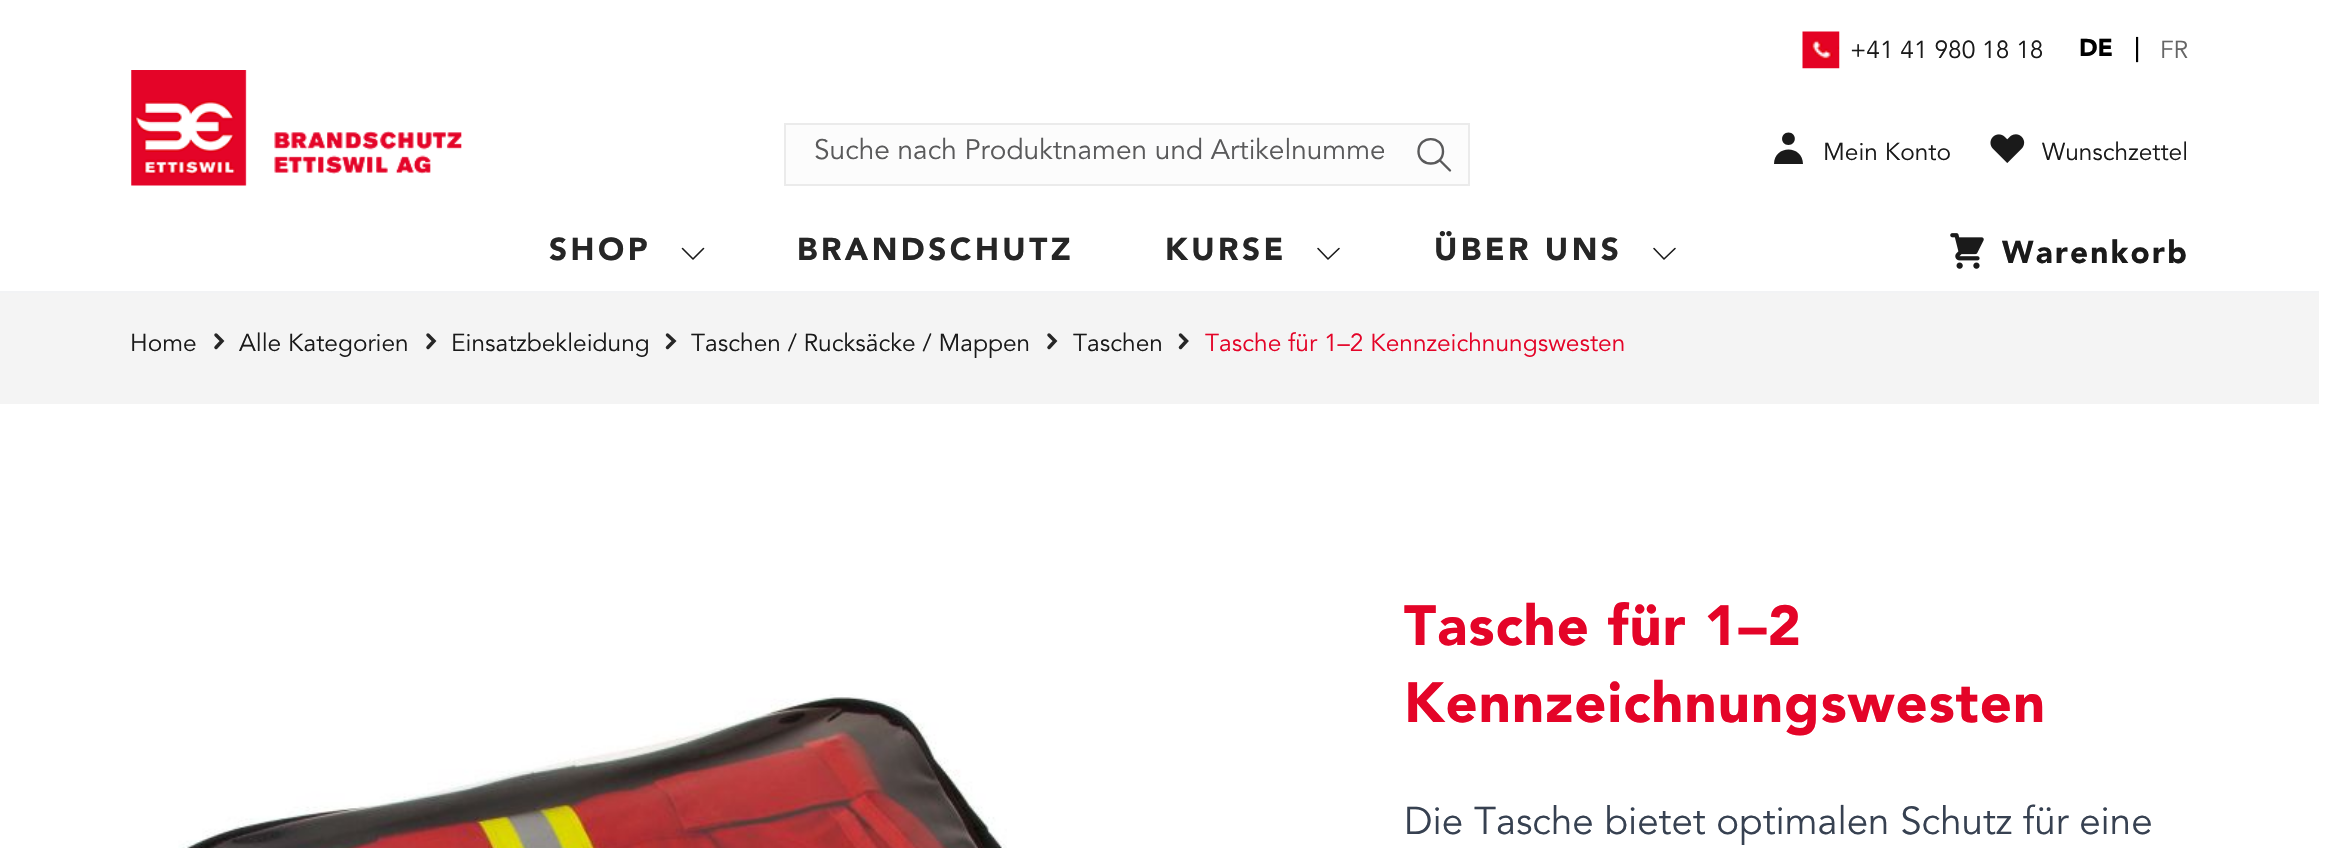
void draw(SkCanvas* canvas) {
  SkPaint paint;
  paint.setAntiAlias(true);
  auto face = [&](const char* family, int weight, float size, bool italic = false) {
    SkFontStyle style(weight, SkFontStyle::kNormal_Width,
      italic ? SkFontStyle::kItalic_Slant : SkFontStyle::kUpright_Slant);
    SkFont result(fontMgr->matchFamilyStyle(family, style), size);
    result.setSubpixel(true);
    return result;
  };
  auto writeSpaced = [&](const char* s, float x, float y, const SkFont& font, const SkPaint& ink, float letter, float word) {
    std::vector<SkGlyphID> glyphs(font.countText(s, strlen(s), SkTextEncoding::kUTF8));
    std::vector<float> xs(glyphs.size());
    font.textToGlyphs(s, strlen(s), SkTextEncoding::kUTF8, glyphs);
    font.getXPos(glyphs, xs, x);
    float extra = 0;
    for (size_t i = 0; i < glyphs.size(); i++) {
      xs[i] += extra;
      extra += letter + word * (glyphs[i] == font.unicharToGlyph(' '));
    }
    canvas->drawTextBlob(SkTextBlob::MakeFromPosHGlyphs(glyphs, xs, y, font), 0, 0, ink);
  };
  auto paste = [&](const char* path, float x, float y, float w, float h) {
    auto image = SkImages::DeferredFromEncodedData(SkData::MakeFromFileName(path));
    canvas->drawImageRect(image, SkRect::MakeXYWH(x, y, w, h), SkSamplingOptions());
  };
  auto shape = [&](const char* data, bool evenOdd = false) {
    SkPath result = *SkParsePath::FromSVGString(data);
    if (evenOdd) result.setFillType(SkPathFillType::kEvenOdd);
    return result;
  };
  canvas->clear(0xffffffff);
  paste("img/1.png", 1802, 31, 38, 38);
  paint.setColor(0xfff2f3f5);
  canvas->drawRect(SkRect::MakeXYWH(0, 291, 2319, 2), paint);
  paste("img/2.png", 131, 70, 331, 116);
  paint.setColor(0xfffcfcfc);
  canvas->drawRect(SkRect::MakeXYWH(785, 124, 684, 61), paint);
  paint.setStroke(true);
  paint.setStrokeWidth(2);
  paint.setColor(0xffebebeb);
  canvas->drawRect(SkRect::MakeXYWH(785, 124, 684, 61), paint);
  paint.setStrokeWidth(2.4f);
  paint.setStrokeCap(SkPaint::kRound_Cap);
  paint.setStrokeJoin(SkPaint::kRound_Join);
  paint.setColor(0xff5a5a5b);
  canvas->drawPath(shape("M1450 170.5L1439.5 160M1443 151.5C1443 167.5 1418.5 167.5 1418.5 151.5C1418.5 135 1443 135 1443 151.5Z"), paint);
  paint.setStroke(false);
  paint.setColor(0xff1a1a1a);
  canvas->drawPath(shape("M1788.5 145C1797 145 1797 132.5 1788.5 132.5C1780 132.5 1780 145 1788.5 145ZM1774 164C1774 144.5 1803 144.5 1803 164Z", true), paint);
  paste("img/3.png", 1990, 134, 35, 29);
  paint.setStroke(true);
  paint.setStrokeWidth(1.6f);
  canvas->drawPath(shape("M703.5 248.5L693 259L682.5 248.5"), paint);
  canvas->drawPath(shape("M1339 248.5L1328 259L1318 248.5"), paint);
  canvas->drawPath(shape("M1675 248.5L1664 259L1654 248.5"), paint);
  paste("img/4.png", 1950, 233, 34, 36);
  paint.setStroke(false);
  paint.setColor(0xfff4f4f4);
  canvas->drawRect(SkRect::MakeXYWH(0, 293, 2319, 111), paint);
  paint.setStroke(true);
  paint.setStrokeWidth(3.5f);
  paint.setStrokeJoin(SkPaint::kMiter_Join);
  paint.setColor(0xff262626);
  canvas->drawPath(shape("M216 335L222 341L216 347.5"), paint);
  canvas->drawPath(shape("M428 335L434 341L428 347.5"), paint);
  canvas->drawPath(shape("M667.5 335L674 341L667.5 347.5"), paint);
  canvas->drawPath(shape("M1049 335L1055 341L1049 347.5"), paint);
  canvas->drawPath(shape("M1180.5 335L1186.5 341L1180.5 347.5"), paint);
  paste("img/5.png", 178, 694, 829, 154);
  auto f0 = face("Avenir", 400, 24.5f);
  paint.setStroke(false);
  paint.setColor(0xff1a1a1a);
  canvas->drawString("+41 41 980 18 18", 1850, 58, f0, paint);
  auto f1 = face("Avenir", 900, 24.5f);
  paint.setColor(0xff000000);
  canvas->drawString("DE", 2079, 56, f1, paint);
  auto f2 = face("Avenir", 700, 24.5f);
  canvas->drawString("|", 2134, 56, f2, paint);
  paint.setColor(0xff666666);
  canvas->drawString("FR", 2160, 58, f0, paint);
  canvas->save();
  canvas->clipRect(SkRect::MakeXYWH(814, 137, 570, 33));
  auto f3 = face("Avenir", 400, 28);
  paint.setColor(0xff5a5a5b);
  canvas->drawString("Suche nach Produktnamen und Artikelnumme", 814, 159, f3, paint);
  canvas->restore();
  paint.setColor(0xff1a1a1a);
  canvas->drawString("Mein Konto", 1823, 160, f0, paint);
  canvas->drawString("Wunschzettel", 2042, 160, f0, paint);
  auto f4 = face("Avenir", 900, 31.5f);
  paint.setColor(0xff262626);
  {
    const struct { const char* s; float x, y; } items[] = {
      {"SHOP", 549, 260},
      {"BRANDSCHUTZ", 797, 260},
      {"KURSE", 1165, 260},
      {"ÜBER UNS", 1434, 260},
    };
    for (auto [s, x, y] : items) {
      writeSpaced(s, x, y, f4, paint, 3.5f, 0);
    }
  }
  paint.setColor(0xff1a1a1a);
  writeSpaced("Warenkorb", 2002, 263, f4, paint, 2.25f, 0);
  {
    const struct { const char* s; float x, y; } items[] = {
      {"Home", 130, 351},
      {"Alle Kategorien", 239, 351},
      {"Einsatzbekleidung", 451, 351},
      {"Taschen / Rucksäcke / Mappen", 691, 351},
      {"Taschen", 1073, 351},
    };
    for (auto [s, x, y] : items) {
      canvas->drawString(s, x, y, f0, paint);
    }
  }
  paint.setColor(0xffe40428);
  canvas->drawString("Tasche für 1–2 Kennzeichnungswesten", 1205, 351, f0, paint);
  auto f5 = face("Avenir", 900, 56);
  writeSpaced("Tasche für 1–2", 1404, 645, f5, paint, 1.1f, 0);
  writeSpaced("Kennzeichnungswesten", 1404, 722, f5, paint, 1.1f, 0);
  auto f6 = face("Avenir", 400, 38.5f);
  paint.setColor(0xff374151);
  canvas->drawString("Die Tasche bietet optimalen Schutz für eine", 1404, 834, f6, paint);
}
